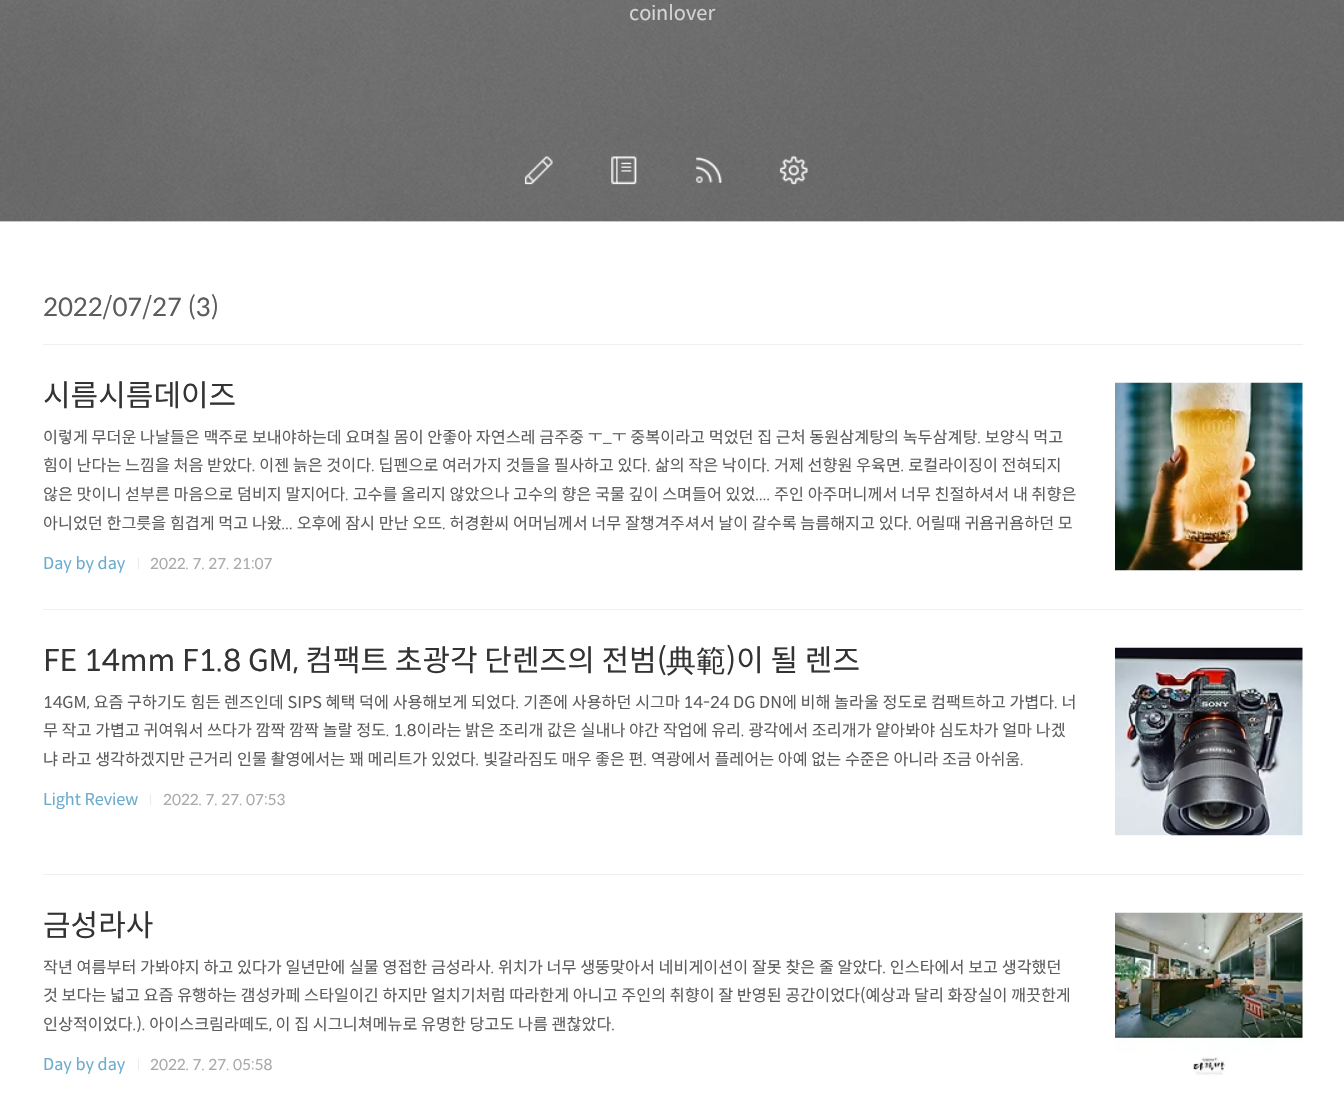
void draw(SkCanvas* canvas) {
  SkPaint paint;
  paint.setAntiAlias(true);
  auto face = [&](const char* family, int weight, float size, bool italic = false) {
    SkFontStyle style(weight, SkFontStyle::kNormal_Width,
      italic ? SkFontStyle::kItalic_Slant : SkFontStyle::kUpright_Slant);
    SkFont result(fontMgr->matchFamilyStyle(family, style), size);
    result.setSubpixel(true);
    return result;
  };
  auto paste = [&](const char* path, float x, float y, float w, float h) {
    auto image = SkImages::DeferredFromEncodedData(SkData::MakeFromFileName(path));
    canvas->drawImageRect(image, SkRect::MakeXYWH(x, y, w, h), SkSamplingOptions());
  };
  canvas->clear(0xffffffff);
  paste("img/1.png", 0, 0, 1344, 222);
  paste("img/2.png", 524, 156, 29, 29);
  paste("img/3.png", 611, 156, 26, 29);
  paste("img/4.png", 696, 157, 26, 26);
  paste("img/5.png", 779, 156, 29, 29);
  paint.setColor(0xffefefef);
  canvas->drawRect(SkRect::MakeXYWH(43, 344, 1260, 1), paint);
  canvas->drawRect(SkRect::MakeXYWH(43, 609, 1260, 1), paint);
  paste("img/6.png", 1115, 382, 188, 189);
  paint.setColor(0xffebebeb);
  canvas->drawRect(SkRect::MakeXYWH(138, 558, 1, 11), paint);
  paint.setColor(0xffefefef);
  canvas->drawRect(SkRect::MakeXYWH(43, 874, 1260, 1), paint);
  paste("img/7.png", 1115, 647, 188, 189);
  paint.setColor(0xffebebeb);
  canvas->drawRect(SkRect::MakeXYWH(150, 794, 1, 11), paint);
  paste("img/8.png", 1115, 912, 188, 164);
  canvas->drawRect(SkRect::MakeXYWH(138, 1059, 1, 11), paint);
  auto f0 = face("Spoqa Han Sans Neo", 400, 20);
  paint.setColor(0xffd4d4d4);
  canvas->drawString("coinlover", 629, 20, f0, paint);
  auto f1 = face("Spoqa Han Sans Neo", 400, 25);
  paint.setColor(0xff5c5c5c);
  canvas->drawString("2022/07/27 (3)", 43, 316, f1, paint);
  auto f2 = face("Spoqa Han Sans Neo", 400, 30);
  paint.setColor(0xff333333);
  canvas->drawString("시름시름데이즈", 43, 406, f2, paint);
  auto f3 = face("Spoqa Han Sans Neo", 400, 16.25f);
  paint.setColor(0xff5c5c5c);
  {
    const struct { const char* s; float x, y; } items[] = {
      {"이렇게 무더운 나날들은 맥주로 보내야하는데 요며칠 몸이 안좋아 자연스레 금주중 ㅜ_ㅜ 중복이라고 먹었던 집 근처 동원삼계탕의 녹두삼계탕. 보양식 먹고", 43, 443},
      {"힘이 난다는 느낌을 처음 받았다. 이젠 늙은 것이다. 딥펜으로 여러가지 것들을 필사하고 있다. 삶의 작은 낙이다. 거제 선향원 우육면. 로컬라이징이 전혀되지", 43, 471},
      {"않은 맛이니 섣부른 마음으로 덤비지 말지어다. 고수를 올리지 않았으나 고수의 향은 국물 깊이 스며들어 있었.... 주인 아주머니께서 너무 친절하셔서 내 취향은", 43, 500},
      {"아니었던 한그릇을 힘겹게 먹고 나왔... 오후에 잠시 만난 오뜨. 허경환씨 어머님께서 너무 잘챙겨주셔서 날이 갈수록 늠름해지고 있다. 어릴때 귀욤귀욤하던 모", 43, 529},
    };
    for (auto [s, x, y] : items) {
      canvas->drawString(s, x, y, f3, paint);
    }
  }
  paint.setColor(0xff6bacce);
  canvas->drawString("Day by day", 43, 569, f3, paint);
  auto f4 = face("Spoqa Han Sans Neo", 400, 15);
  paint.setColor(0xffaaaaaa);
  canvas->drawString("2022. 7. 27. 21:07", 150, 569, f4, paint);
  paint.setColor(0xff333333);
  canvas->drawString("FE 14mm F1.8 GM, 컴팩트 초광각 단렌즈의 전범(", 43, 671, f2, paint);
  auto f5 = face("WenQuanYi Zen Hei", 500, 30);
  canvas->drawString("典範", 666, 671, f5, paint);
  canvas->drawString(")이 될 렌즈", 726, 671, f2, paint);
  paint.setColor(0xff5c5c5c);
  {
    const struct { const char* s; float x, y; } items[] = {
      {"14GM, 요즘 구하기도 힘든 렌즈인데 SIPS 혜택 덕에 사용해보게 되었다. 기존에 사용하던 시그마 14-24 DG DN에 비해 놀라울 정도로 컴팩트하고 가볍다. 너", 43, 708},
      {"무 작고 가볍고 귀여워서 쓰다가 깜짝 깜짝 놀랄 정도. 1.8이라는 밝은 조리개 값은 실내나 야간 작업에 유리. 광각에서 조리개가 얕아봐야 심도차가 얼마 나겠", 43, 736},
      {"냐 라고 생각하겠지만 근거리 인물 촬영에서는 꽤 메리트가 있었다. 빛갈라짐도 매우 좋은 편. 역광에서 플레어는 아예 없는 수준은 아니라 조금 아쉬움.", 43, 765},
    };
    for (auto [s, x, y] : items) {
      canvas->drawString(s, x, y, f3, paint);
    }
  }
  paint.setColor(0xff6bacce);
  canvas->drawString("Light Review", 43, 805, f3, paint);
  paint.setColor(0xffaaaaaa);
  canvas->drawString("2022. 7. 27. 07:53", 163, 805, f4, paint);
  paint.setColor(0xff333333);
  canvas->drawString("금성라사", 43, 936, f2, paint);
  paint.setColor(0xff5c5c5c);
  {
    const struct { const char* s; float x, y; } items[] = {
      {"작년 여름부터 가봐야지 하고 있다가 일년만에 실물 영접한 금성라사. 위치가 너무 생뚱맞아서 네비게이션이 잘못 찾은 줄 알았다. 인스타에서 보고 생각했던", 43, 973},
      {"것 보다는 넓고 요즘 유행하는 갬성카페 스타일이긴 하지만 얼치기처럼 따라한게 아니고 주인의 취향이 잘 반영된 공간이었다(예상과 달리 화장실이 깨끗한게", 43, 1001},
      {"인상적이었다.). 아이스크림라떼도, 이 집 시그니쳐메뉴로 유명한 당고도 나름 괜찮았다.", 43, 1030},
    };
    for (auto [s, x, y] : items) {
      canvas->drawString(s, x, y, f3, paint);
    }
  }
  paint.setColor(0xff6bacce);
  canvas->drawString("Day by day", 43, 1070, f3, paint);
  paint.setColor(0xffaaaaaa);
  canvas->drawString("2022. 7. 27. 05:58", 150, 1070, f4, paint);
}
